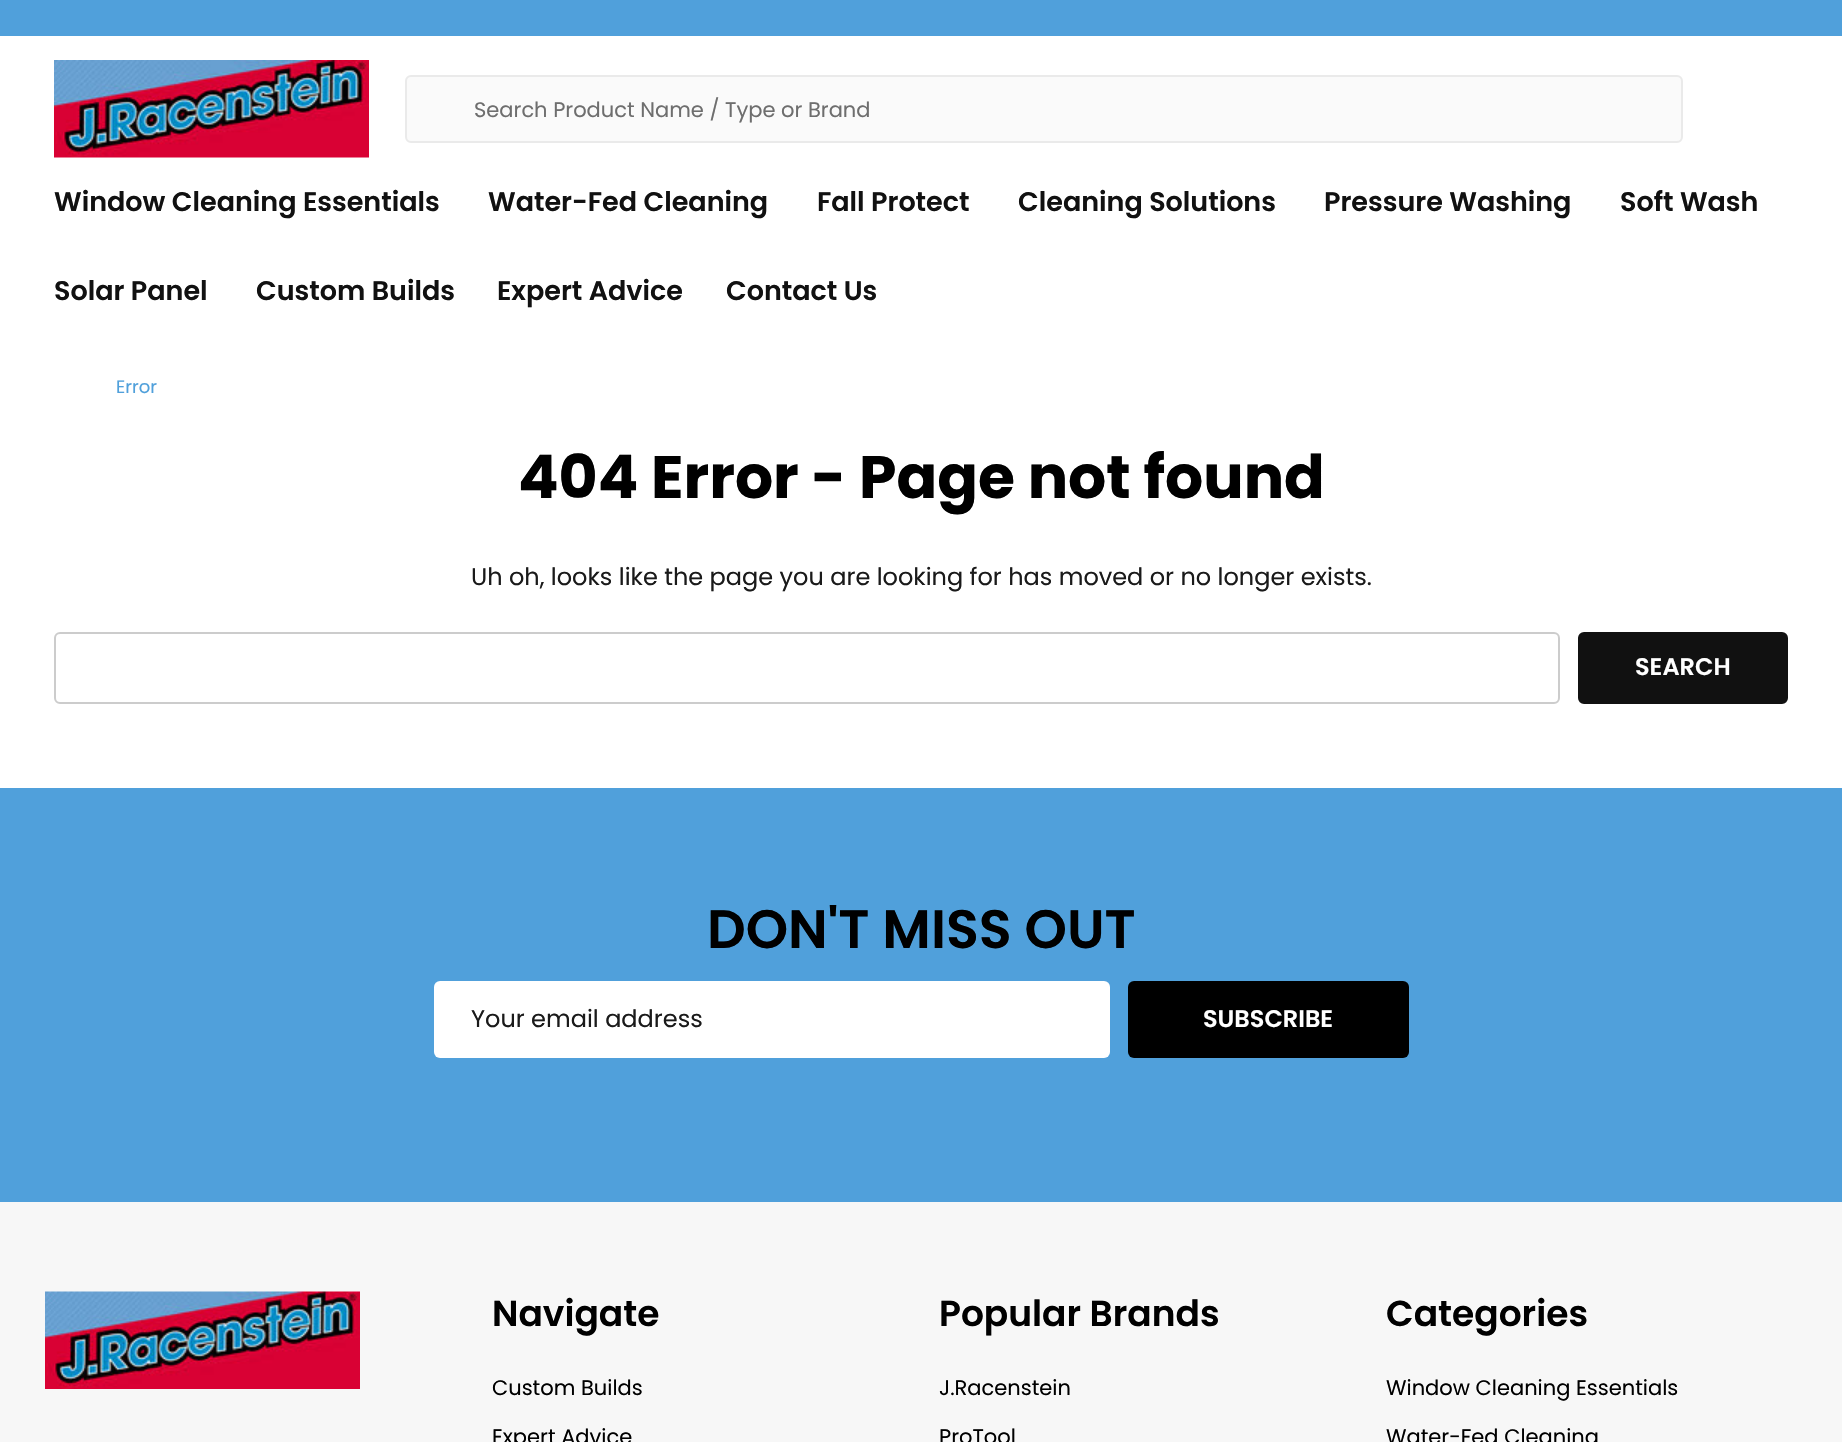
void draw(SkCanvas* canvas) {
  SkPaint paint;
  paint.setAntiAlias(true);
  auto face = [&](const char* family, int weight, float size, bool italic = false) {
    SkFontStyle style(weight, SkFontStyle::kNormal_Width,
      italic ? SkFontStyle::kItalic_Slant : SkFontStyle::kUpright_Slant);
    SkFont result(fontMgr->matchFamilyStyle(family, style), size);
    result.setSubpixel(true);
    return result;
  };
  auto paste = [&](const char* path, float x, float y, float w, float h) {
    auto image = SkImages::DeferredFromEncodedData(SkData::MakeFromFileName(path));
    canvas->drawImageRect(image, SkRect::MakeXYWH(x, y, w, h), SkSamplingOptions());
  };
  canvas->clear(0xffffffff);
  paint.setColor(0xff50a0db);
  canvas->drawRect(SkRect::MakeXYWH(0, 0, 1842, 36), paint);
  paste("img/1.png", 54, 60, 315, 98);
  paint.setColor(0xfffafafa);
  canvas->drawRoundRect(SkRect::MakeXYWH(406, 76, 1276, 66), 5, 5, paint);
  paint.setStroke(true);
  paint.setStrokeWidth(2);
  paint.setColor(0xffeaeaea);
  canvas->drawRoundRect(SkRect::MakeXYWH(406, 76, 1276, 66), 5, 5, paint);
  paint.setColor(0xffcccccc);
  canvas->drawRoundRect(SkRect::MakeXYWH(55, 633, 1504, 70), 5, 5, paint);
  paint.setStroke(false);
  paint.setColor(0xff111111);
  canvas->drawRoundRect(SkRect::MakeXYWH(1579.5f, 633.5f, 207, 69), 4.5f, 4.5f, paint);
  paint.setStroke(true);
  paint.setStrokeWidth(3);
  canvas->drawRoundRect(SkRect::MakeXYWH(1579.5f, 633.5f, 207, 69), 4.5f, 4.5f, paint);
  paint.setStroke(false);
  paint.setColor(0xff50a0db);
  canvas->drawRect(SkRect::MakeXYWH(0, 788, 1842, 414), paint);
  paint.setColor(0xffffffff);
  canvas->drawRoundRect(SkRect::MakeXYWH(434, 981, 676, 77), 6, 6, paint);
  paint.setColor(0xff000000);
  canvas->drawRoundRect(SkRect::MakeXYWH(1128, 981, 281, 77), 6, 6, paint);
  paint.setColor(0xfff7f7f7);
  canvas->drawRect(SkRect::MakeXYWH(0, 1202, 1842, 240), paint);
  paste("img/2.png", 45, 1291, 315, 98);
  auto f0 = face("Poppins", 400, 21);
  paint.setColor(0xff6e6e6e);
  canvas->drawString("Search Product Name / Type or Brand", 474, 117, f0, paint);
  auto f1 = face("Poppins", 600, 27);
  paint.setColor(0xff111111);
  {
    const struct { const char* s; float x, y; } items[] = {
      {"Window Cleaning Essentials", 54, 211},
      {"Water-Fed Cleaning", 488, 211},
      {"Fall Protect", 817, 211},
      {"Cleaning Solutions", 1018, 211},
      {"Pressure Washing", 1324, 211},
      {"Soft Wash", 1620, 211},
      {"Solar Panel", 54, 300},
      {"Custom Builds", 256, 300},
      {"Expert Advice", 497, 300},
      {"Contact Us", 726, 300},
    };
    for (auto [s, x, y] : items) {
      canvas->drawString(s, x, y, f1, paint);
    }
  }
  auto f2 = face("Poppins", 400, 18);
  paint.setColor(0xff50a0db);
  canvas->drawString("Error", 116, 393, f2, paint);
  auto f3 = face("Poppins", 700, 60);
  paint.setColor(0xff000000);
  canvas->drawString("404 Error - Page not found", 518, 498, f3, paint);
  auto f4 = face("Poppins", 400, 24);
  paint.setColor(0xff1a1a1a);
  canvas->drawString("Uh oh, looks like the page you are looking for has moved or no longer exists.", 471, 585, f4, paint);
  auto f5 = face("Poppins", 600, 24);
  paint.setColor(0xffffffff);
  canvas->drawString("SEARCH", 1635, 675, f5, paint);
  auto f6 = face("Poppins", 600, 54);
  paint.setColor(0xff000000);
  canvas->drawString("DON'T MISS OUT", 707, 948, f6, paint);
  paint.setColor(0xff1a1a1a);
  canvas->drawString("Your email address", 471, 1027, f4, paint);
  paint.setColor(0xffffffff);
  canvas->drawString("SUBSCRIBE", 1203, 1027, f5, paint);
  auto f7 = face("Poppins", 600, 36);
  paint.setColor(0xff000000);
  canvas->drawString("Navigate", 492, 1326, f7, paint);
  canvas->drawString("Custom Builds", 492, 1395, f0, paint);
  canvas->drawString("Expert Advice", 492, 1444, f0, paint);
  canvas->drawString("Popular Brands", 939, 1326, f7, paint);
  canvas->drawString("J.Racenstein", 939, 1395, f0, paint);
  canvas->drawString("ProTool", 939, 1444, f0, paint);
  canvas->drawString("Categories", 1386, 1326, f7, paint);
  canvas->drawString("Window Cleaning Essentials", 1386, 1395, f0, paint);
  canvas->drawString("Water-Fed Cleaning", 1386, 1444, f0, paint);
}
